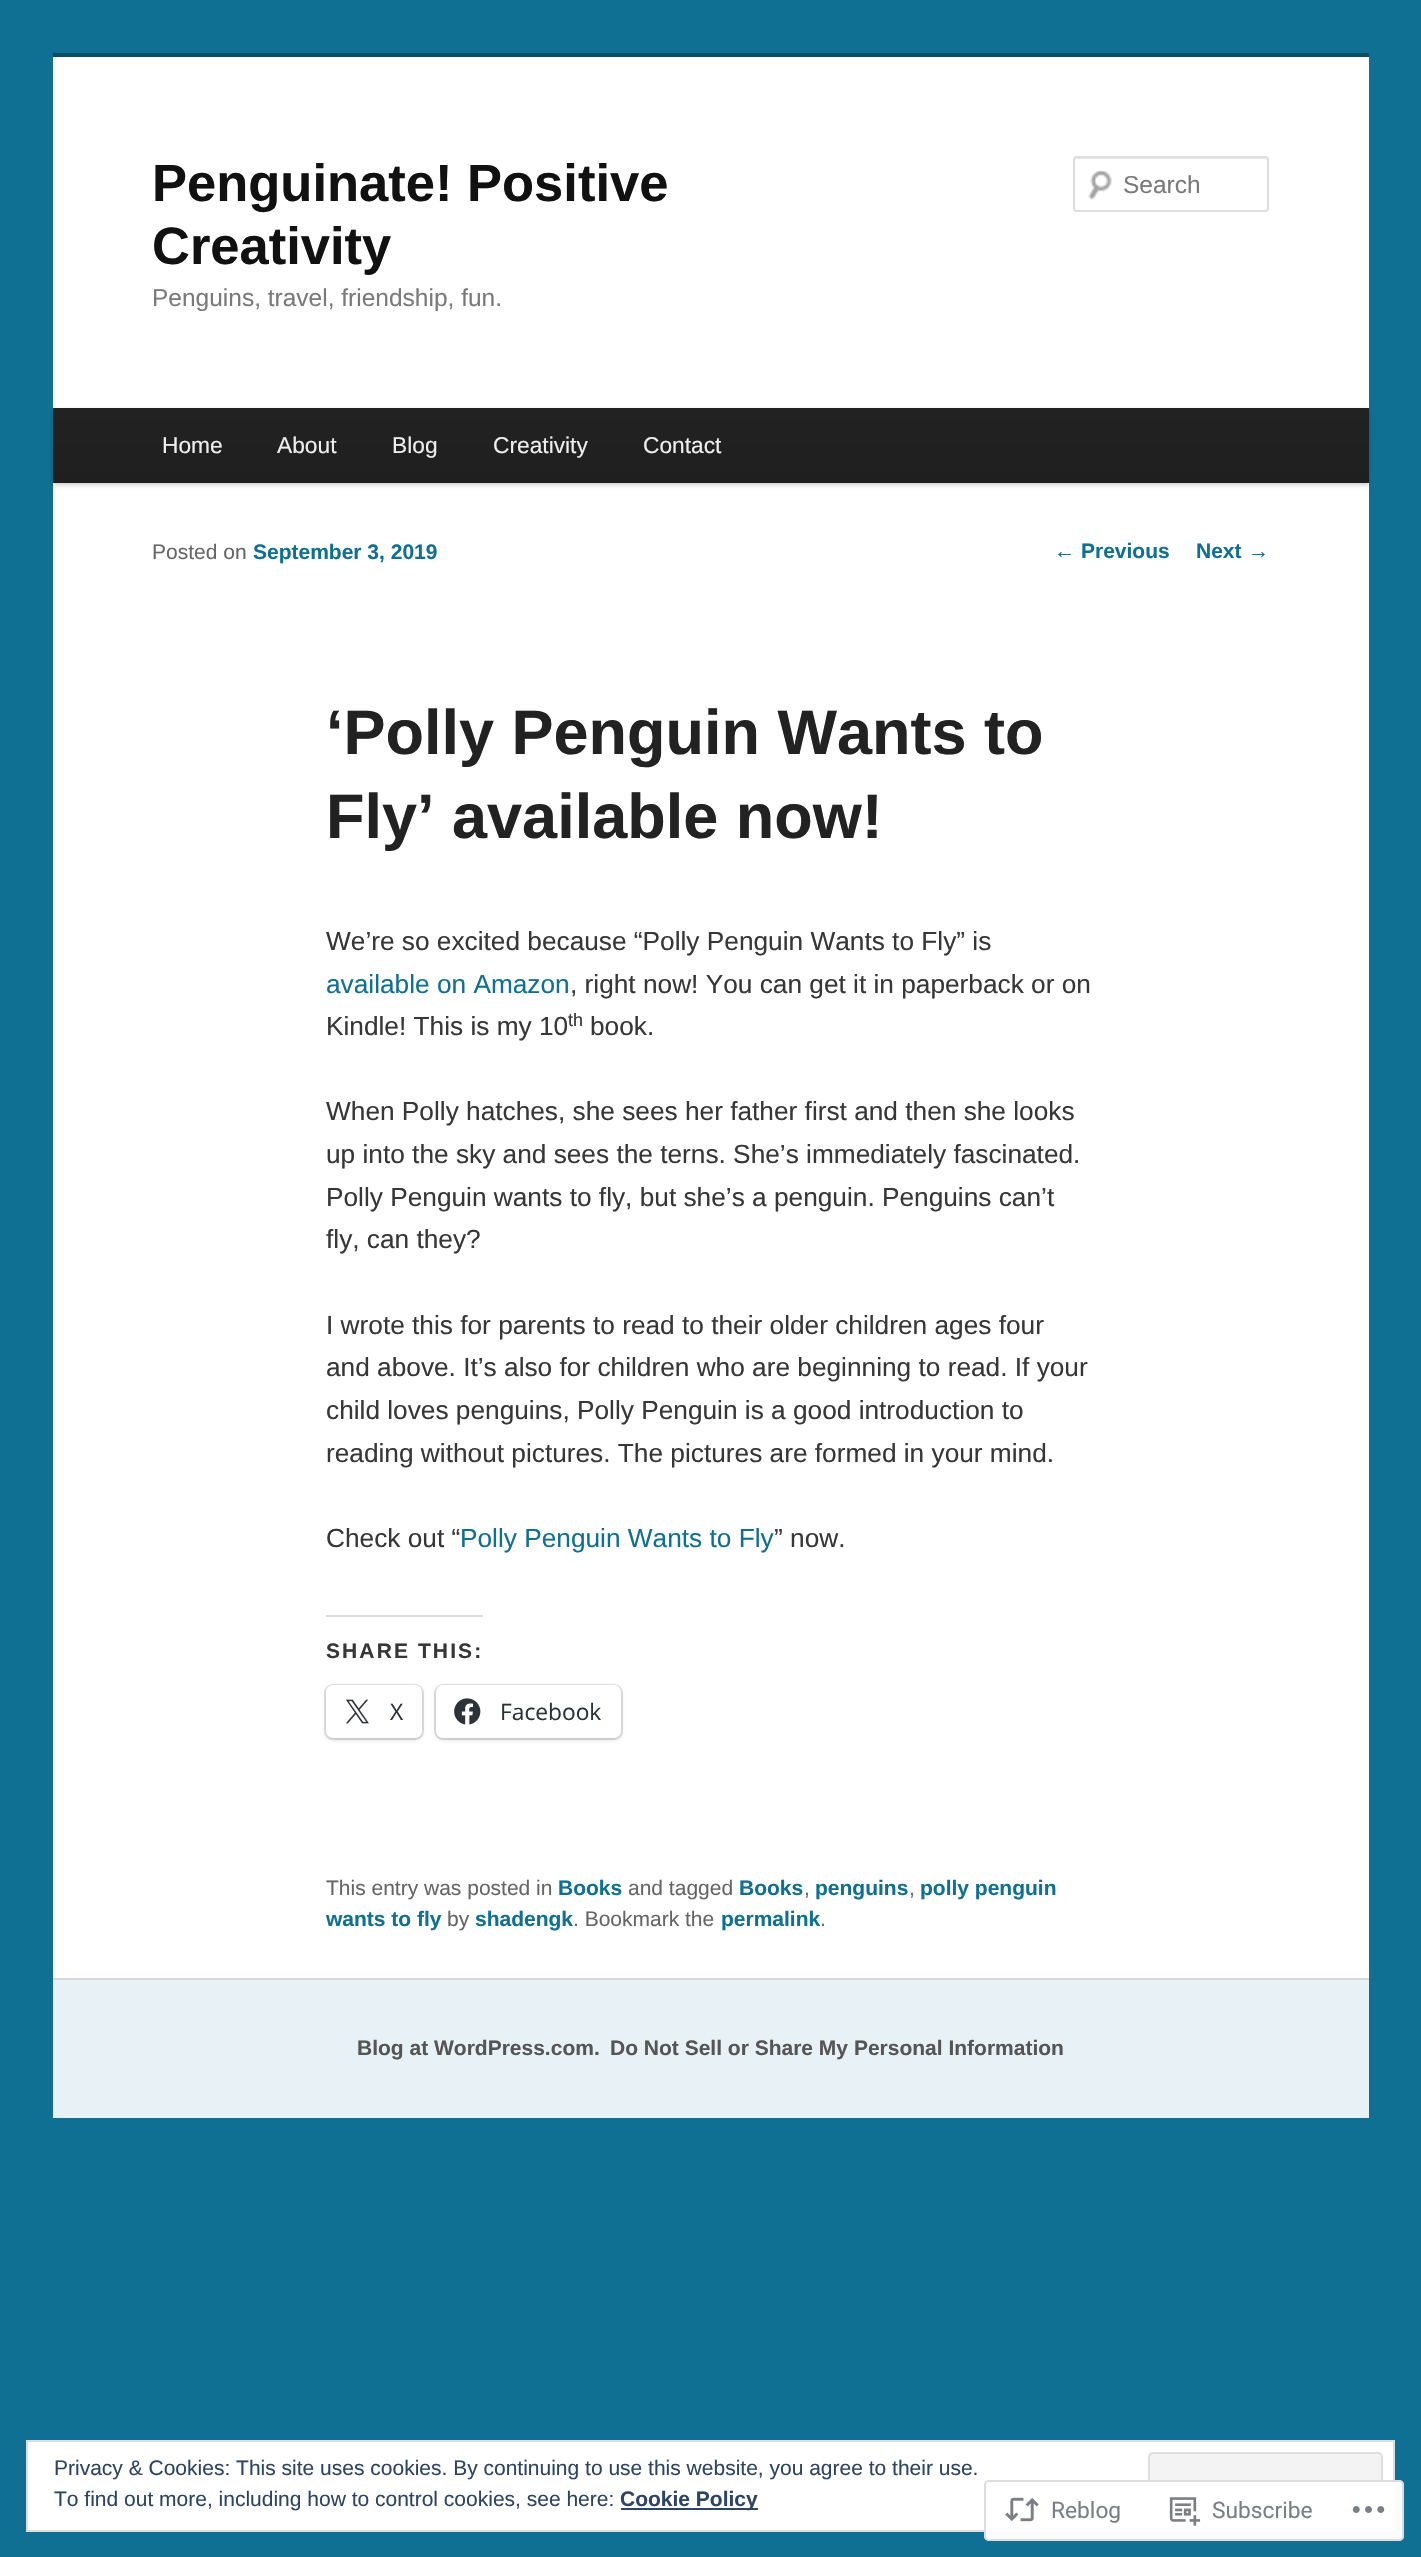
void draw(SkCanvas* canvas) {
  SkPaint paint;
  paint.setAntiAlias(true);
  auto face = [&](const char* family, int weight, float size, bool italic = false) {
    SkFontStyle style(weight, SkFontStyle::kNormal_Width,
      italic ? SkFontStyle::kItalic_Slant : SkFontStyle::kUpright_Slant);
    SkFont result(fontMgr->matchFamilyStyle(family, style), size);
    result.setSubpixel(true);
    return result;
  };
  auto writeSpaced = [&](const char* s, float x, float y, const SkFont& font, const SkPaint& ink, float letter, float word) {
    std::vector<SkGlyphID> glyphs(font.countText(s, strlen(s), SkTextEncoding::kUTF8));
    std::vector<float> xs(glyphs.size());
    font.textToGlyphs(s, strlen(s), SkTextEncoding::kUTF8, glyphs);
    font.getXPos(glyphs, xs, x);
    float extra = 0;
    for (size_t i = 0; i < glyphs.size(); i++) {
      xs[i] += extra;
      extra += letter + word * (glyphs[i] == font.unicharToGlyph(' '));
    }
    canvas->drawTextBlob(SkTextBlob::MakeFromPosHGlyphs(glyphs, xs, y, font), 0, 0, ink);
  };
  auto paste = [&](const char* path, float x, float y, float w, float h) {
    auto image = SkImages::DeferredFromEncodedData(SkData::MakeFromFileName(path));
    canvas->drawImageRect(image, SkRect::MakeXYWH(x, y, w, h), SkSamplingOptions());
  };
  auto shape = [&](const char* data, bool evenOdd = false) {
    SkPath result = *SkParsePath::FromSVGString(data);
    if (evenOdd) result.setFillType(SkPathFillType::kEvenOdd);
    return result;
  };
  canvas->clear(0xff0f7093);
  paint.setColor(0xffffffff);
  canvas->drawRect(SkRect::MakeXYWH(53, 57, 1316, 1921), paint);
  paint.setColor(0xff0a4d65);
  canvas->drawRect(SkRect::MakeXYWH(53, 53, 1316, 4), paint);
  paste("img/1.png", 1088, 170, 24, 30);
  paint.setColor(0xffe6e6e6);
  canvas->drawPath(shape("M1076 159H1265L1267 160V161V160C1267 159 1266 158 1265 158H1077C1076 158 1075 159 1075 159Z"), paint);
  paint.setStroke(true);
  paint.setStrokeWidth(2);
  paint.setColor(0xffdddddd);
  canvas->drawRoundRect(SkRect::MakeXYWH(1074, 157, 194, 54), 3, 3, paint);
  paint.setStroke(false);
  paint.setColor(0x33000000);
  paint.setMaskFilter(SkMaskFilter::MakeBlur(kNormal_SkBlurStyle, 2));
  canvas->drawRect(SkRect::MakeXYWH(53, 410, 1316, 75), paint);
  paint.setMaskFilter(nullptr);
  {
    const SkColor colors[] = {0xff222222, 0xff1f1f1f};
    const float stops[] = {0, 1};
    const SkPoint ends[] = {{711, 408}, {711, 483}};
    paint.setShader(SkGradientShader::MakeLinear(ends, colors, stops, 2, SkTileMode::kClamp));
    paint.setAlpha(255);
  }
  canvas->drawRect(SkRect::MakeXYWH(53, 408, 1316, 75), paint);
  paint.setShader(nullptr);
  paint.setColor(0xffdcdcde);
  canvas->drawRect(SkRect::MakeXYWH(326, 1615, 157, 2), paint);
  paint.setStroke(true);
  paint.setColor(0xffe0e0e0);
  canvas->drawRoundRect(SkRect::MakeXYWH(325, 1685, 98, 54), 8, 8, paint);
  paint.setStroke(false);
  paint.setColor(0x1f000000);
  paint.setMaskFilter(SkMaskFilter::MakeBlur(kNormal_SkBlurStyle, 2));
  canvas->drawRoundRect(SkRect::MakeXYWH(326, 1687, 96, 53), 7, 7, paint);
  paint.setMaskFilter(nullptr);
  paint.setColor(0xffffffff);
  canvas->drawRoundRect(SkRect::MakeXYWH(326, 1685, 96, 53), 7, 7, paint);
  paste("img/2.png", 346, 1699, 23, 25);
  paint.setStroke(true);
  paint.setColor(0xffe0e0e0);
  canvas->drawRoundRect(SkRect::MakeXYWH(435, 1685, 187, 54), 8, 8, paint);
  paint.setStroke(false);
  paint.setColor(0x1f000000);
  paint.setMaskFilter(SkMaskFilter::MakeBlur(kNormal_SkBlurStyle, 2));
  canvas->drawRoundRect(SkRect::MakeXYWH(436, 1687, 185, 53), 7, 7, paint);
  paint.setMaskFilter(nullptr);
  paint.setColor(0xffffffff);
  canvas->drawRoundRect(SkRect::MakeXYWH(436, 1685, 185, 53), 7, 7, paint);
  paste("img/3.png", 454, 1698, 27, 27);
  paint.setColor(0xffe8f1f5);
  canvas->drawRect(SkRect::MakeXYWH(53, 1980, 1316, 138), paint);
  paint.setColor(0xffd1d9dd);
  canvas->drawRect(SkRect::MakeXYWH(53, 1978, 1316, 2), paint);
  paint.setColor(0xffffffff);
  canvas->drawRect(SkRect::MakeXYWH(27, 2441, 1367, 90), paint);
  paint.setStroke(true);
  paint.setColor(0xffdedede);
  canvas->drawRect(SkRect::MakeXYWH(27, 2441, 1367, 90), paint);
  paint.setStroke(false);
  paint.setColor(0xfff3f3f3);
  canvas->drawRoundRect(SkRect::MakeXYWH(1149, 2453, 233, 66), 4, 4, paint);
  paint.setStroke(true);
  paint.setColor(0xffdedede);
  canvas->drawRoundRect(SkRect::MakeXYWH(1149, 2453, 233, 66), 4, 4, paint);
  paint.setStroke(false);
  paint.setColor(0xff2e4467);
  canvas->drawRect(SkRect::MakeXYWH(621, 2508, 137, 2), paint);
  paint.setColor(0xfaffffff);
  canvas->drawRoundRect(SkRect::MakeXYWH(984, 2480, 420, 61), 5, 5, paint);
  paint.setStroke(true);
  paint.setColor(0xfadcdcde);
  canvas->drawRoundRect(SkRect::MakeXYWH(985, 2481, 418, 59), 4, 4, paint);
  paste("img/4.png", 1005, 2497, 34, 25);
  paste("img/5.png", 1169, 2497, 32, 29);
  paste("img/6.png", 1352, 2506, 33, 7);
  auto f0 = face("Liberation Sans", 700, 52.5f);
  paint.setStroke(false);
  paint.setColor(0xff111111);
  canvas->drawString("Penguinate! Positive", 152, 201, f0, paint);
  canvas->drawString("Creativity", 152, 264, f0, paint);
  auto f1 = face("Liberation Sans", 400, 24.5f);
  paint.setColor(0xff7a7a7a);
  canvas->drawString("Penguins, travel, friendship, fun.", 152, 306, f1, paint);
  canvas->drawString("Search", 1123, 193, f1, paint);
  auto f2 = face("Liberation Sans", 400, 22.75f);
  paint.setColor(0xffeeeeee);
  {
    const struct { const char* s; float x, y; } items[] = {
      {"Home", 162, 453},
      {"About", 277, 453},
      {"Blog", 392, 453},
      {"Creativity", 493, 453},
      {"Contact", 643, 453},
    };
    for (auto [s, x, y] : items) {
      canvas->drawString(s, x, y, f2, paint);
    }
  }
  auto f3 = face("Liberation Sans", 400, 21);
  paint.setColor(0xff666666);
  canvas->drawString("Posted on", 152, 559, f3, paint);
  auto f4 = face("Liberation Sans", 700, 21);
  paint.setColor(0xff0f7093);
  canvas->drawString("September 3, 2019", 253, 559, f4, paint);
  auto f5 = face("Liberation Sans", 700, 63);
  paint.setColor(0xff222222);
  canvas->drawString("‘Polly Penguin Wants to", 326, 754, f5, paint);
  canvas->drawString("Fly’ available now!", 326, 838, f5, paint);
  auto f6 = face("Liberation Sans", 400, 26.25f);
  paint.setColor(0xff373737);
  canvas->drawString("We’re so excited because “Polly Penguin Wants to Fly” is", 326, 950, f6, paint);
  paint.setColor(0xff0f7093);
  canvas->drawString("available on Amazon", 326, 993, f6, paint);
  paint.setColor(0xff373737);
  canvas->drawString(", right now! You can get it in paperback or on", 570, 993, f6, paint);
  canvas->drawString("Kindle! This is my 10", 326, 1035, f6, paint);
  auto f7 = face("Liberation Sans", 400, 18);
  canvas->drawString("th", 568, 1026, f7, paint);
  {
    const struct { const char* s; float x, y; } items[] = {
      {"book.", 590, 1035},
      {"When Polly hatches, she sees her father first and then she looks", 326, 1120},
      {"up into the sky and sees the terns. She’s immediately fascinated.", 326, 1163},
      {"Polly Penguin wants to fly, but she’s a penguin. Penguins can’t", 326, 1206},
      {"fly, can they?", 326, 1248},
      {"I wrote this for parents to read to their older children ages four", 326, 1334},
      {"and above. It’s also for children who are beginning to read. If your", 326, 1376},
      {"child loves penguins, Polly Penguin is a good introduction to", 326, 1419},
      {"reading without pictures. The pictures are formed in your mind.", 326, 1462},
      {"Check out “", 326, 1547},
    };
    for (auto [s, x, y] : items) {
      canvas->drawString(s, x, y, f6, paint);
    }
  }
  paint.setColor(0xff0f7093);
  canvas->drawString("Polly Penguin Wants to Fly", 460, 1547, f6, paint);
  paint.setColor(0xff373737);
  canvas->drawString("” now.", 774, 1547, f6, paint);
  writeSpaced("SHARE THIS:", 326, 1658, f4, paint, 2.1f, 0);
  auto f8 = face("Open Sans", 400, 22.75f);
  paint.setColor(0xff2c3338);
  canvas->drawString("X", 390, 1720, f8, paint);
  canvas->drawString("Facebook", 500, 1720, f8, paint);
  paint.setColor(0xff666666);
  canvas->drawString("This entry was posted in", 326, 1895, f3, paint);
  paint.setColor(0xff0f7093);
  canvas->drawString("Books", 558, 1895, f4, paint);
  paint.setColor(0xff666666);
  canvas->drawString("and tagged", 628, 1895, f3, paint);
  paint.setColor(0xff0f7093);
  canvas->drawString("Books", 739, 1895, f4, paint);
  paint.setColor(0xff666666);
  canvas->drawString(",", 804, 1895, f3, paint);
  paint.setColor(0xff0f7093);
  canvas->drawString("penguins", 815, 1895, f4, paint);
  paint.setColor(0xff666666);
  canvas->drawString(",", 909, 1895, f3, paint);
  paint.setColor(0xff0f7093);
  canvas->drawString("polly penguin", 920, 1895, f4, paint);
  canvas->drawString("wants to fly", 326, 1926, f4, paint);
  paint.setColor(0xff666666);
  canvas->drawString("by", 447, 1926, f3, paint);
  paint.setColor(0xff0f7093);
  canvas->drawString("shadengk", 475, 1926, f4, paint);
  paint.setColor(0xff666666);
  canvas->drawString(". Bookmark the", 573, 1926, f3, paint);
  paint.setColor(0xff0f7093);
  canvas->drawString("permalink", 721, 1926, f4, paint);
  paint.setColor(0xff666666);
  canvas->drawString(".", 820, 1926, f3, paint);
  paint.setColor(0xff0f7093);
  canvas->drawString("←", 1054, 558, f3, paint);
  canvas->drawString("Previous", 1081, 558, f4, paint);
  canvas->drawString("Next", 1196, 558, f4, paint);
  canvas->drawString("→", 1248, 558, f3, paint);
  paint.setColor(0xff555555);
  canvas->drawString("Blog at WordPress.com.", 357, 2055, f4, paint);
  canvas->drawString("Do Not Sell or Share My Personal Information", 610, 2055, f4, paint);
  paint.setColor(0xff2e4467);
  canvas->drawString("Privacy & Cookies: This site uses cookies. By continuing to use this website, you agree to their use.", 54, 2475, f3, paint);
  canvas->drawString("To find out more, including how to control cookies, see here:", 54, 2506, f3, paint);
  canvas->drawString("Cookie Policy", 620, 2506, f4, paint);
  auto f9 = face("Roboto", 400, 22.75f);
  paint.setColor(0xff7b7f85);
  canvas->drawString("Reblog", 1051, 2518, f9, paint);
  canvas->drawString("Subscribe", 1212, 2518, f9, paint);
}
